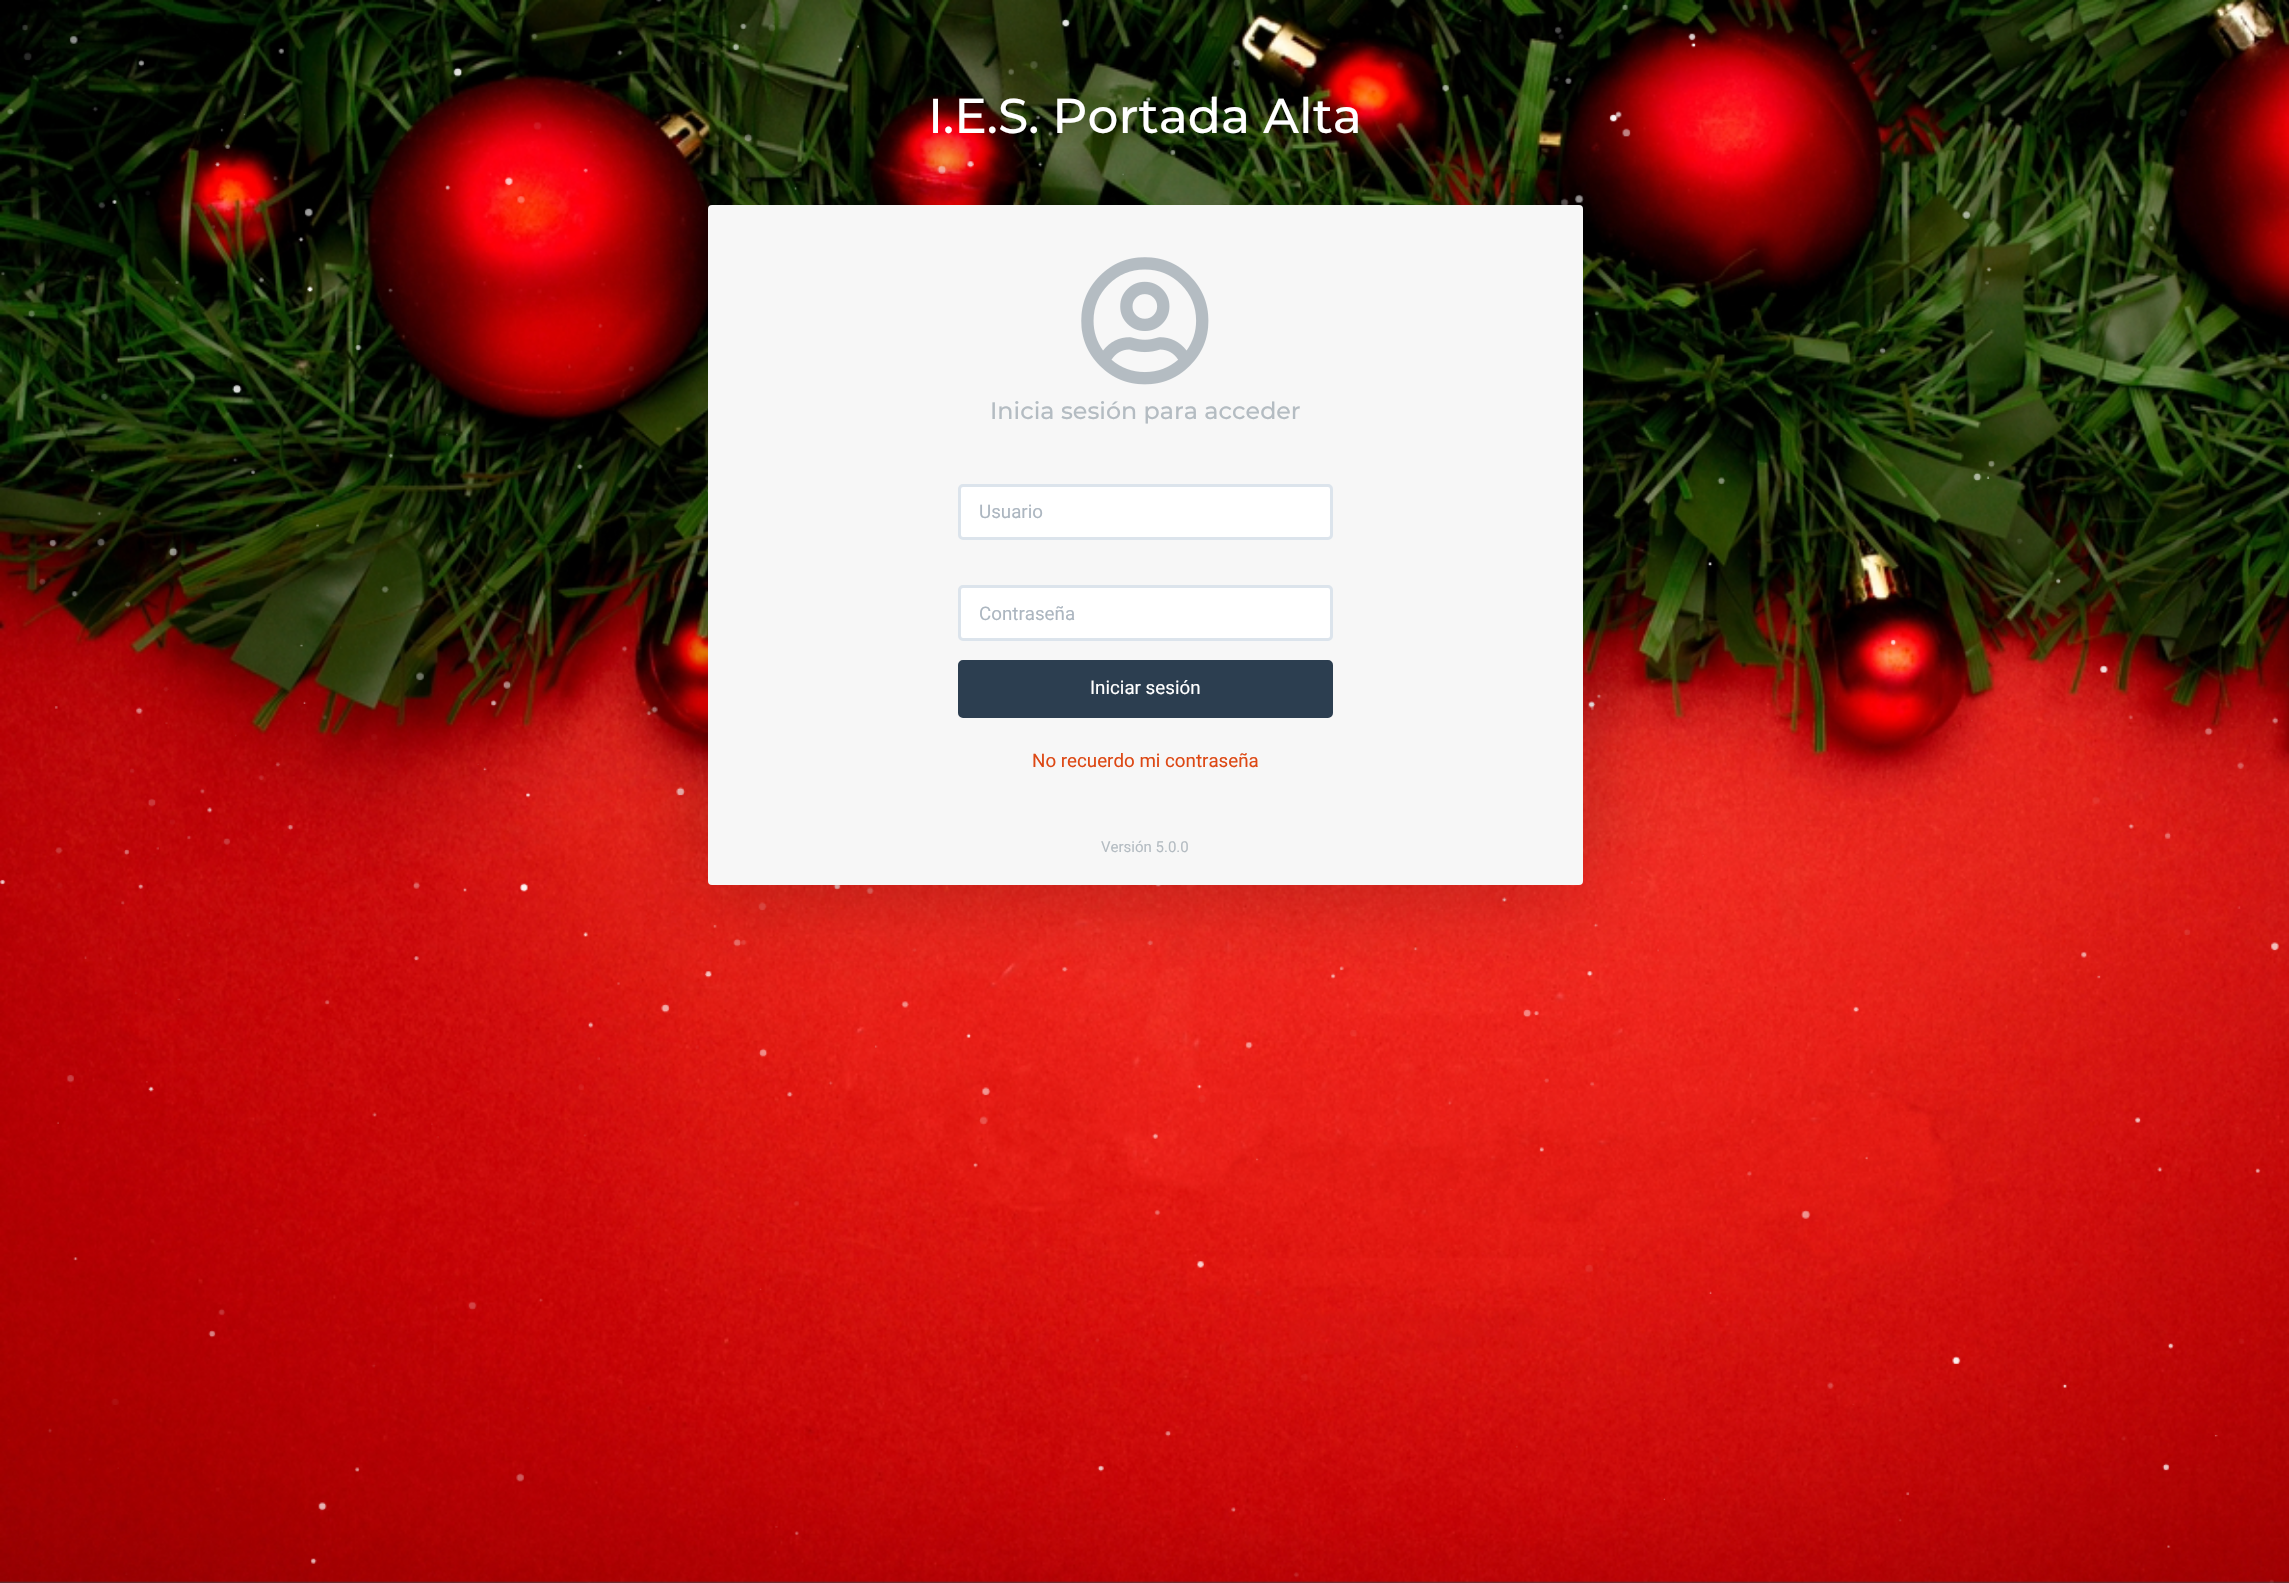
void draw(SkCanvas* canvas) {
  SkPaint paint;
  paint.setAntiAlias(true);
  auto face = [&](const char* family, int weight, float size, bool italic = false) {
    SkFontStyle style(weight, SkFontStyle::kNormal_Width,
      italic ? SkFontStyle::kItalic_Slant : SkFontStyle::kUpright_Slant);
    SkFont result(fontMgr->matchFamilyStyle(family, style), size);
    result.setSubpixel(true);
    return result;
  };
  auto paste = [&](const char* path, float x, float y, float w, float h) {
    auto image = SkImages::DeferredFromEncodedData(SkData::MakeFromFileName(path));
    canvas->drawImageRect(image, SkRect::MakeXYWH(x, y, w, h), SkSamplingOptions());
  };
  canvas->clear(0xffffffff);
  paste("img/1.png", 0, 0, 2289, 1583);
  paste("img/2.png", 0, 0, 2279, 1583);
  paint.setColor(0x3d000100);
  paint.setMaskFilter(SkMaskFilter::MakeBlur(kNormal_SkBlurStyle, 45.5f));
  canvas->drawRoundRect(SkRect::MakeXYWH(708, 210, 875, 680), 4, 4, paint);
  paint.setMaskFilter(nullptr);
  paint.setColor(0xfff7f7f7);
  canvas->drawRoundRect(SkRect::MakeXYWH(708, 205, 875, 680), 4, 4, paint);
  paste("img/3.png", 1081, 257, 128, 128);
  paint.setColor(0xffffffff);
  canvas->drawRoundRect(SkRect::MakeXYWH(959.5f, 485.5f, 372, 53), 3.5f, 3.5f, paint);
  paint.setStroke(true);
  paint.setStrokeWidth(3);
  paint.setColor(0xffdce4ec);
  canvas->drawRoundRect(SkRect::MakeXYWH(959.5f, 485.5f, 372, 53), 3.5f, 3.5f, paint);
  paint.setStroke(false);
  paint.setColor(0xffffffff);
  canvas->drawRoundRect(SkRect::MakeXYWH(959.5f, 586.5f, 372, 53), 3.5f, 3.5f, paint);
  paint.setStroke(true);
  paint.setColor(0xffdce4ec);
  canvas->drawRoundRect(SkRect::MakeXYWH(959.5f, 586.5f, 372, 53), 3.5f, 3.5f, paint);
  paint.setStroke(false);
  paint.setColor(0xff2c3e50);
  canvas->drawRoundRect(SkRect::MakeXYWH(959.5f, 661.5f, 372, 55), 3.5f, 3.5f, paint);
  paint.setStroke(true);
  canvas->drawRoundRect(SkRect::MakeXYWH(959.5f, 661.5f, 372, 55), 3.5f, 3.5f, paint);
  auto f0 = face("Montserrat", 500, 48.75f);
  paint.setStroke(false);
  paint.setColor(0xffffffff);
  canvas->drawString("I.E.S. Portada Alta", 928, 133, f0, paint);
  auto f1 = face("Montserrat", 500, 23.75f);
  paint.setColor(0xffb4bcc2);
  canvas->drawString("Inicia sesión para acceder", 990, 419, f1, paint);
  auto f2 = face("Roboto", 400, 18.75f);
  paint.setColor(0xffacb6c0);
  canvas->drawString("Usuario", 979, 518, f2, paint);
  canvas->drawString("Contraseña", 979, 620, f2, paint);
  paint.setColor(0xffffffff);
  canvas->drawString("Iniciar sesión", 1090, 694, f2, paint);
  paint.setColor(0xffdd4814);
  canvas->drawString("No recuerdo mi contraseña", 1032, 767, f2, paint);
  auto f3 = face("Roboto", 400, 15);
  paint.setColor(0xffb4bcc2);
  canvas->drawString("Versión 5.0.0", 1101, 852, f3, paint);
}
